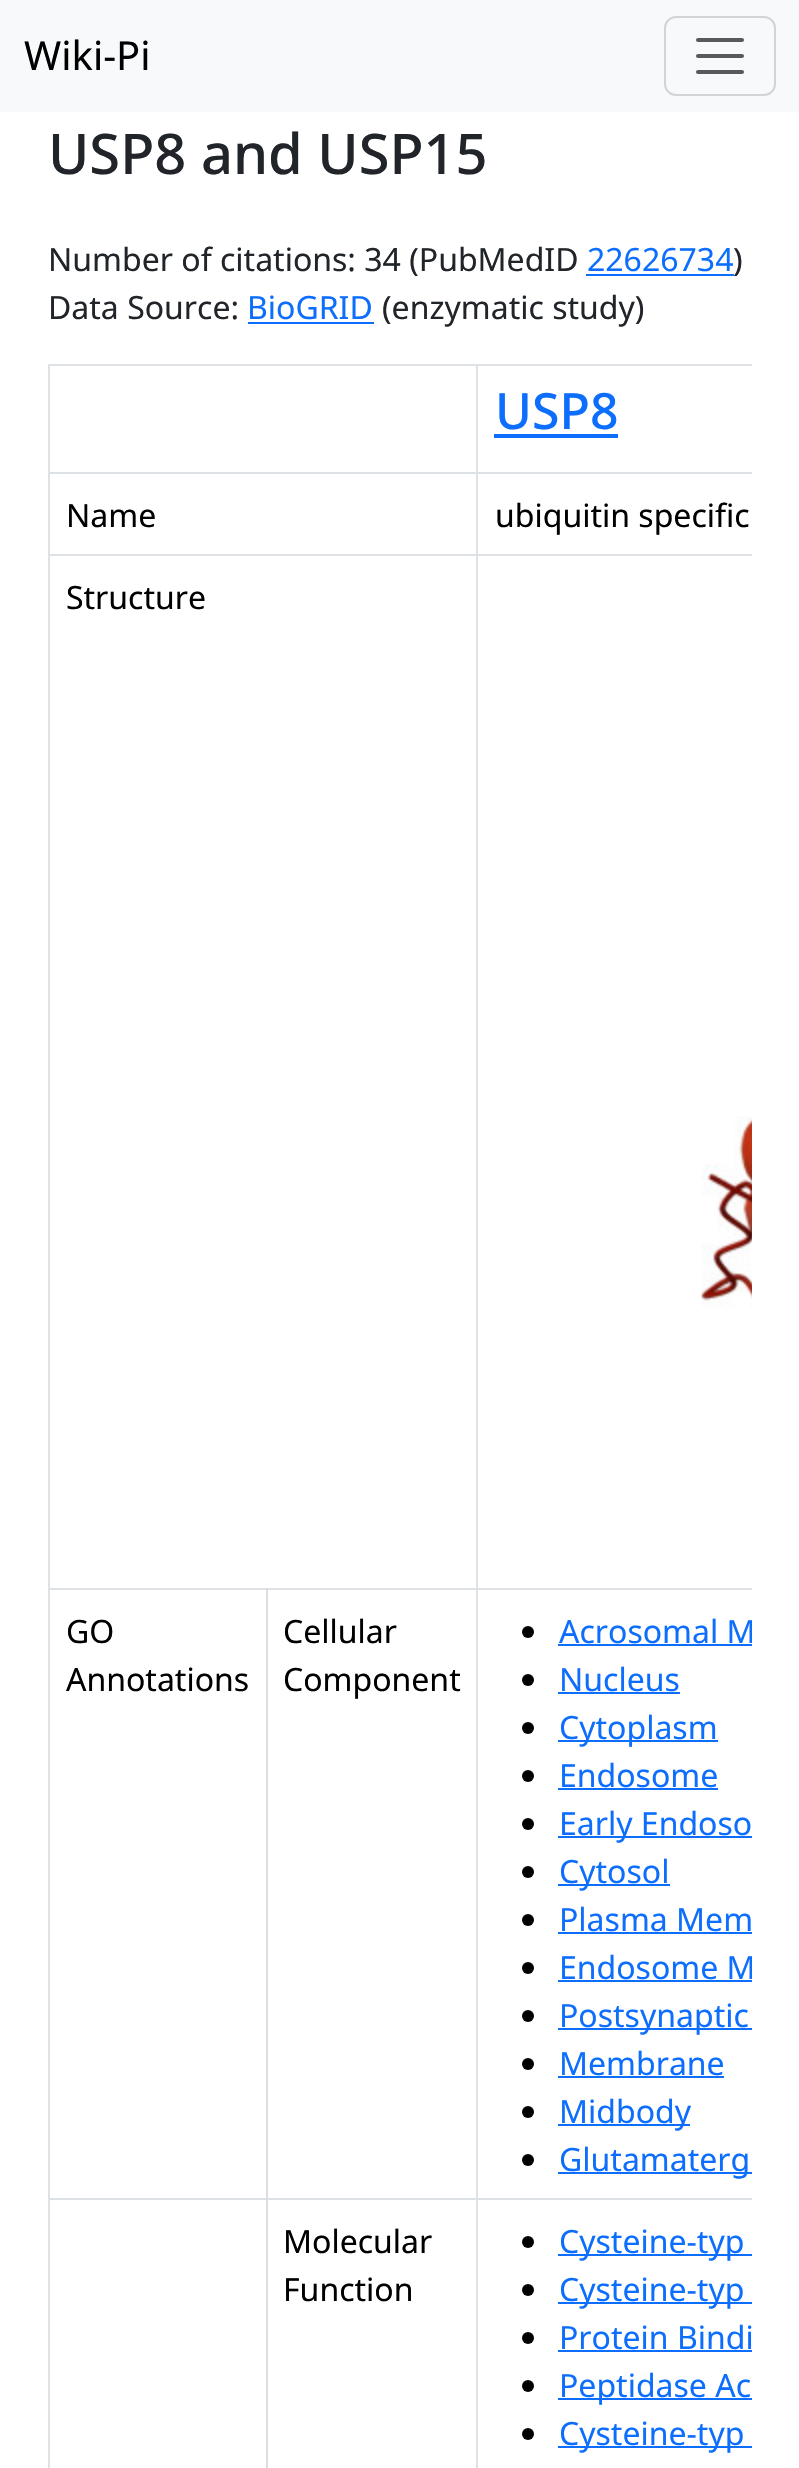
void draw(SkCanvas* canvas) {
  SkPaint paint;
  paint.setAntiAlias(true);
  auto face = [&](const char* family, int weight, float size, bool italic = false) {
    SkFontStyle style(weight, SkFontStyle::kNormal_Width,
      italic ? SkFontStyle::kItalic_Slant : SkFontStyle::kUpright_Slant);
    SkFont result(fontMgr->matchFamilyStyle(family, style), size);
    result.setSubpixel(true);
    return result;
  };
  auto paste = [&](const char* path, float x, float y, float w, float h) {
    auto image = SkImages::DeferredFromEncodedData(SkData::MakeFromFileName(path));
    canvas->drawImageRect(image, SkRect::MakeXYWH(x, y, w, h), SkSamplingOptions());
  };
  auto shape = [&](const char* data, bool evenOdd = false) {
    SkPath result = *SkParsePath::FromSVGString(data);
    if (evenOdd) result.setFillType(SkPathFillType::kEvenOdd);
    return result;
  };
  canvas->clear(0xffffffff);
  paint.setColor(0xfff8f9fa);
  canvas->drawRect(SkRect::MakeXYWH(0, 0, 799, 112), paint);
  paint.setStroke(true);
  paint.setStrokeWidth(2);
  paint.setColor(0xffd3d4d5);
  canvas->drawRoundRect(SkRect::MakeXYWH(665, 17, 110, 78), 11, 11, paint);
  paint.setStrokeWidth(4);
  paint.setStrokeCap(SkPaint::kRound_Cap);
  paint.setColor(0xff575a5d);
  canvas->drawPath(shape("M698 40H742M698 56H742M698 72H742"), paint);
  paint.setStroke(false);
  {
    const struct { float x, y, w, h; SkColor color; } items[] = {
      {586, 274, 148, 2, 0xff0d6efd},
      {248, 322, 126, 2, 0xff0d6efd},
      {48, 364, 704, 2, 0xffdee2e6},
      {494, 434, 124, 4, 0xff0d6efd},
      {48, 472, 704, 2, 0xffdee2e6},
      {48, 554, 704, 2, 0xffdee2e6},
    };
    for (auto [x, y, w, h, color] : items) {
      paint.setColor(color);
      canvas->drawRect(SkRect::MakeXYWH(x, y, w, h), paint);
    }
  }
  paste("img/1.png", 701, 1116, 51, 192);
  {
    const struct { float x, y, w, h; SkColor color; } items[] = {
      {48, 1588, 704, 2, 0xffdee2e6},
      {48, 2198, 704, 2, 0xffdee2e6},
      {266, 1588, 2, 880, 0xffdddddd},
      {48, 364, 2, 2104, 0xffdee2e6},
    };
    for (auto [x, y, w, h, color] : items) {
      paint.setColor(color);
      canvas->drawRect(SkRect::MakeXYWH(x, y, w, h), paint);
    }
  }
  paint.setColor(0xff000000);
  canvas->drawCircle(528, 1632, 6, paint);
  paint.setColor(0xff0d6efd);
  canvas->drawRect(SkRect::MakeXYWH(558, 1644, 194, 2), paint);
  paint.setColor(0xff000000);
  canvas->drawCircle(528, 1680, 6, paint);
  paint.setColor(0xff0d6efd);
  canvas->drawRect(SkRect::MakeXYWH(558, 1692, 122, 2), paint);
  paint.setColor(0xff000000);
  canvas->drawCircle(528, 1728, 6, paint);
  paint.setColor(0xff0d6efd);
  canvas->drawRect(SkRect::MakeXYWH(558, 1740, 160, 2), paint);
  paint.setColor(0xff000000);
  canvas->drawCircle(528, 1776, 6, paint);
  paint.setColor(0xff0d6efd);
  canvas->drawRect(SkRect::MakeXYWH(558, 1788, 160, 2), paint);
  paint.setColor(0xff000000);
  canvas->drawCircle(528, 1824, 6, paint);
  paint.setColor(0xff0d6efd);
  canvas->drawRect(SkRect::MakeXYWH(558, 1836, 194, 2), paint);
  paint.setColor(0xff000000);
  canvas->drawCircle(528, 1872, 6, paint);
  paint.setColor(0xff0d6efd);
  canvas->drawRect(SkRect::MakeXYWH(558, 1884, 112, 2), paint);
  paint.setColor(0xff000000);
  canvas->drawCircle(528, 1920, 6, paint);
  paint.setColor(0xff0d6efd);
  canvas->drawRect(SkRect::MakeXYWH(558, 1932, 194, 2), paint);
  paint.setColor(0xff000000);
  canvas->drawCircle(528, 1968, 6, paint);
  paint.setColor(0xff0d6efd);
  canvas->drawRect(SkRect::MakeXYWH(558, 1980, 194, 2), paint);
  paint.setColor(0xff000000);
  canvas->drawCircle(528, 2016, 6, paint);
  paint.setColor(0xff0d6efd);
  canvas->drawRect(SkRect::MakeXYWH(558, 2028, 194, 2), paint);
  paint.setColor(0xff000000);
  canvas->drawCircle(528, 2064, 6, paint);
  paint.setColor(0xff0d6efd);
  canvas->drawRect(SkRect::MakeXYWH(558, 2076, 166, 2), paint);
  paint.setColor(0xff000000);
  canvas->drawCircle(528, 2112, 6, paint);
  paint.setColor(0xff0d6efd);
  canvas->drawRect(SkRect::MakeXYWH(558, 2124, 132, 2), paint);
  paint.setColor(0xff000000);
  canvas->drawCircle(528, 2160, 6, paint);
  paint.setColor(0xff0d6efd);
  canvas->drawRect(SkRect::MakeXYWH(558, 2172, 194, 2), paint);
  paint.setColor(0xffdee2e6);
  canvas->drawRect(SkRect::MakeXYWH(476, 364, 2, 2104), paint);
  paint.setColor(0xff000000);
  canvas->drawCircle(528, 2242, 6, paint);
  paint.setColor(0xff0d6efd);
  canvas->drawRect(SkRect::MakeXYWH(558, 2254, 194, 2), paint);
  paint.setColor(0xff000000);
  canvas->drawCircle(528, 2290, 6, paint);
  paint.setColor(0xff0d6efd);
  canvas->drawRect(SkRect::MakeXYWH(558, 2302, 194, 2), paint);
  paint.setColor(0xff000000);
  canvas->drawCircle(528, 2338, 6, paint);
  paint.setColor(0xff0d6efd);
  canvas->drawRect(SkRect::MakeXYWH(558, 2350, 194, 2), paint);
  paint.setColor(0xff000000);
  canvas->drawCircle(528, 2386, 6, paint);
  paint.setColor(0xff0d6efd);
  canvas->drawRect(SkRect::MakeXYWH(558, 2398, 194, 2), paint);
  paint.setColor(0xff000000);
  canvas->drawCircle(528, 2434, 6, paint);
  paint.setColor(0xff0d6efd);
  canvas->drawRect(SkRect::MakeXYWH(558, 2446, 194, 2), paint);
  auto f0 = face("Noto Sans", 400, 40);
  paint.setColor(0xff000000);
  canvas->drawString("Wiki-Pi", 24, 70, f0, paint);
  auto f1 = face("Noto Sans", 500, 56);
  paint.setColor(0xff212529);
  canvas->drawString("USP8 and USP15", 48, 174, f1, paint);
  auto f2 = face("Noto Sans", 400, 32);
  canvas->drawString("Number of citations: 34 (PubMedID", 48, 271, f2, paint);
  paint.setColor(0xff0d6efd);
  canvas->drawString("22626734", 587, 271, f2, paint);
  paint.setColor(0xff212529);
  canvas->drawString(")", 733, 271, f2, paint);
  canvas->drawString("Data Source:", 48, 319, f2, paint);
  paint.setColor(0xff0d6efd);
  canvas->drawString("BioGRID", 247, 319, f2, paint);
  paint.setColor(0xff212529);
  canvas->drawString("(enzymatic study)", 382, 319, f2, paint);
  auto f3 = face("Noto Sans", 500, 50);
  paint.setColor(0xff0d6efd);
  canvas->drawString("USP8", 495, 429, f3, paint);
  paint.setColor(0xff000000);
  {
    const struct { const char* s; float x, y; } items[] = {
      {"Name", 66, 527},
      {"ubiquitin specific", 495, 527},
      {"Structure", 66, 609},
      {"GO", 66, 1643},
      {"Annotations", 66, 1691},
      {"Cellular", 283, 1643},
      {"Component", 283, 1691},
    };
    for (auto [s, x, y] : items) {
      canvas->drawString(s, x, y, f2, paint);
    }
  }
  canvas->save();
  canvas->clipRect(SkRect::MakeXYWH(48, 364, 704, 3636));
  paint.setColor(0xff0d6efd);
  canvas->drawString("Acrosomal M", 559, 1643, f2, paint);
  canvas->restore();
  {
    const struct { const char* s; float x, y; } items[] = {
      {"Nucleus", 559, 1691},
      {"Cytoplasm", 559, 1739},
      {"Endosome", 559, 1787},
      {"Early Endoso", 559, 1835},
      {"Cytosol", 559, 1883},
      {"Plasma Mem", 559, 1931},
    };
    for (auto [s, x, y] : items) {
      canvas->drawString(s, x, y, f2, paint);
    }
  }
  canvas->save();
  canvas->clipRect(SkRect::MakeXYWH(48, 364, 704, 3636));
  canvas->drawString("Endosome M", 559, 1979, f2, paint);
  canvas->restore();
  {
    const struct { const char* s; float x, y; } items[] = {
      {"Postsynaptic", 559, 2027},
      {"Membrane", 559, 2075},
      {"Midbody", 559, 2123},
      {"Glutamaterg", 559, 2171},
    };
    for (auto [s, x, y] : items) {
      canvas->drawString(s, x, y, f2, paint);
    }
  }
  paint.setColor(0xff000000);
  canvas->drawString("Molecular", 283, 2253, f2, paint);
  canvas->drawString("Function", 283, 2301, f2, paint);
  paint.setColor(0xff0d6efd);
  {
    const struct { const char* s; float x, y; } items[] = {
      {"Cysteine-typ", 559, 2253},
      {"Cysteine-typ", 559, 2301},
      {"Protein Bindi", 559, 2349},
      {"Peptidase Ac", 559, 2397},
      {"Cysteine-typ", 559, 2445},
    };
    for (auto [s, x, y] : items) {
      canvas->drawString(s, x, y, f2, paint);
    }
  }
}
